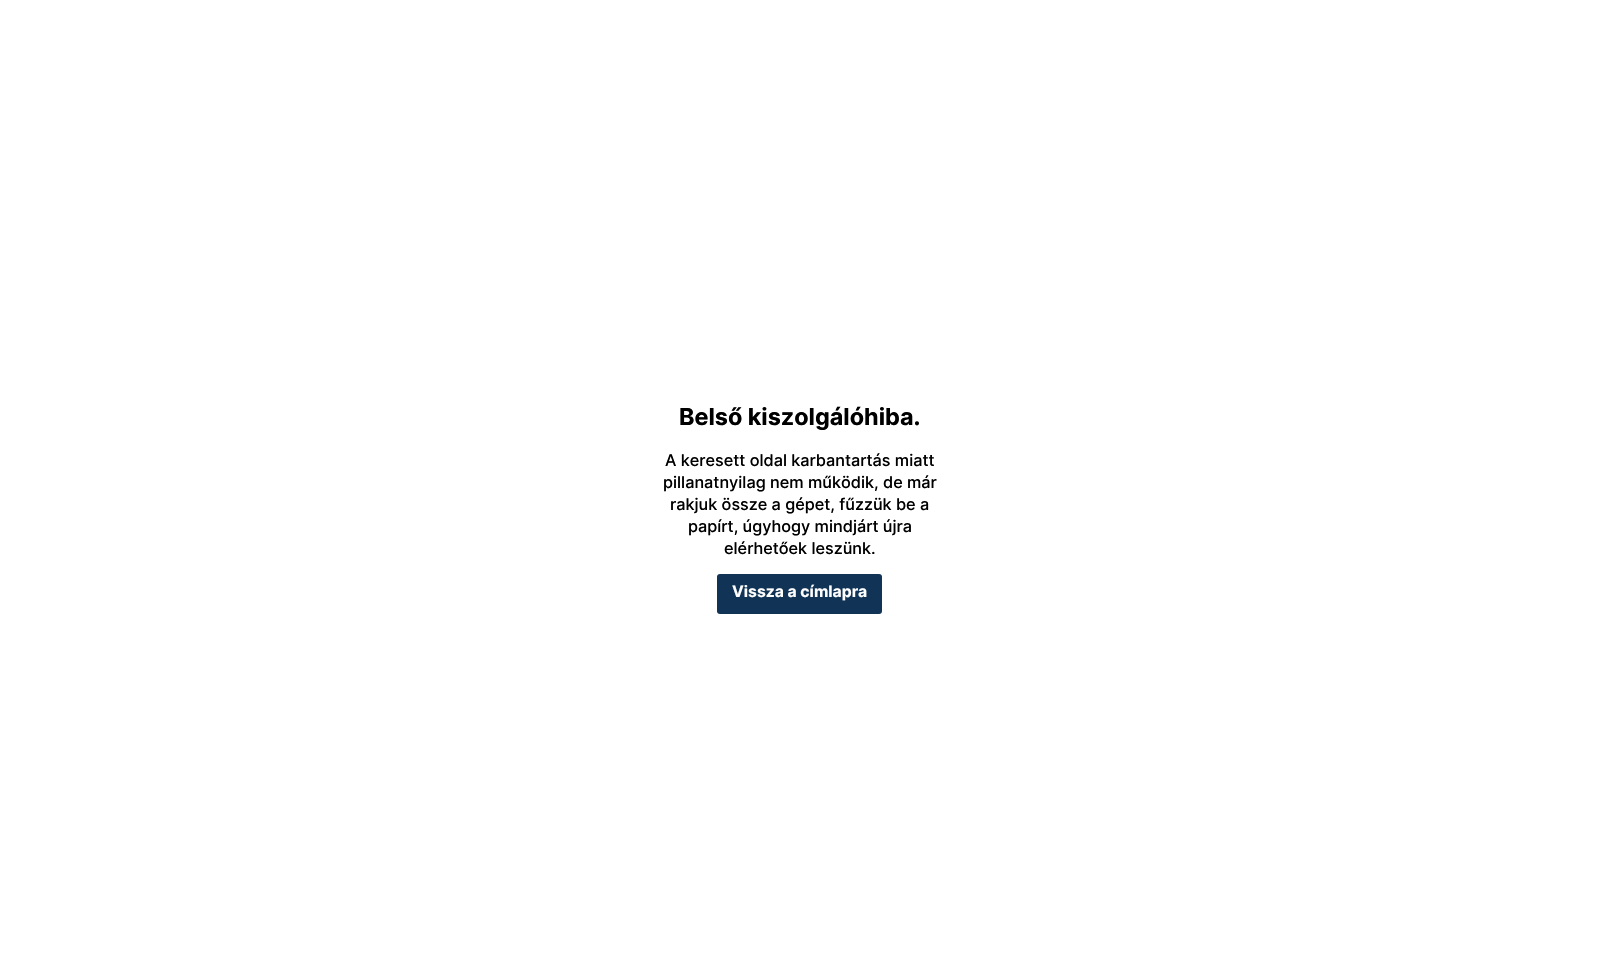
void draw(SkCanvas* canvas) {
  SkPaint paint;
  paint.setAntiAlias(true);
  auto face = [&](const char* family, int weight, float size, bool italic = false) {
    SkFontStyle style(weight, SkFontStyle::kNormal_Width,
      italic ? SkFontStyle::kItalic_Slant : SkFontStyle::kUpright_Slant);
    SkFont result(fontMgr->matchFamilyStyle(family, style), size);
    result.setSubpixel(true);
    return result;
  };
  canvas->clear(0xffffffff);
  paint.setColor(0xff113355);
  canvas->drawRoundRect(SkRect::MakeXYWH(717, 574, 165, 40), 3, 3, paint);
  auto f0 = face("Inter", 700, 23.4f);
  paint.setColor(0xff000000);
  canvas->drawString("Belső kiszolgálóhiba.", 679, 425, f0, paint);
  auto f1 = face("Inter", 500, 16.25f);
  {
    const struct { const char* s; float x, y; } items[] = {
      {"A keresett oldal karbantartás miatt", 665, 466},
      {"pillanatnyilag nem működik, de már", 663, 488},
      {"rakjuk össze a gépet, fűzzük be a", 670, 510},
      {"papírt, úgyhogy mindjárt újra", 688, 532},
      {"elérhetőek leszünk.", 724, 554},
    };
    for (auto [s, x, y] : items) {
      canvas->drawString(s, x, y, f1, paint);
    }
  }
  auto f2 = face("Inter", 700, 15.75f);
  paint.setColor(0xffffffff);
  canvas->drawString("Vissza a címlapra", 732, 597, f2, paint);
}
